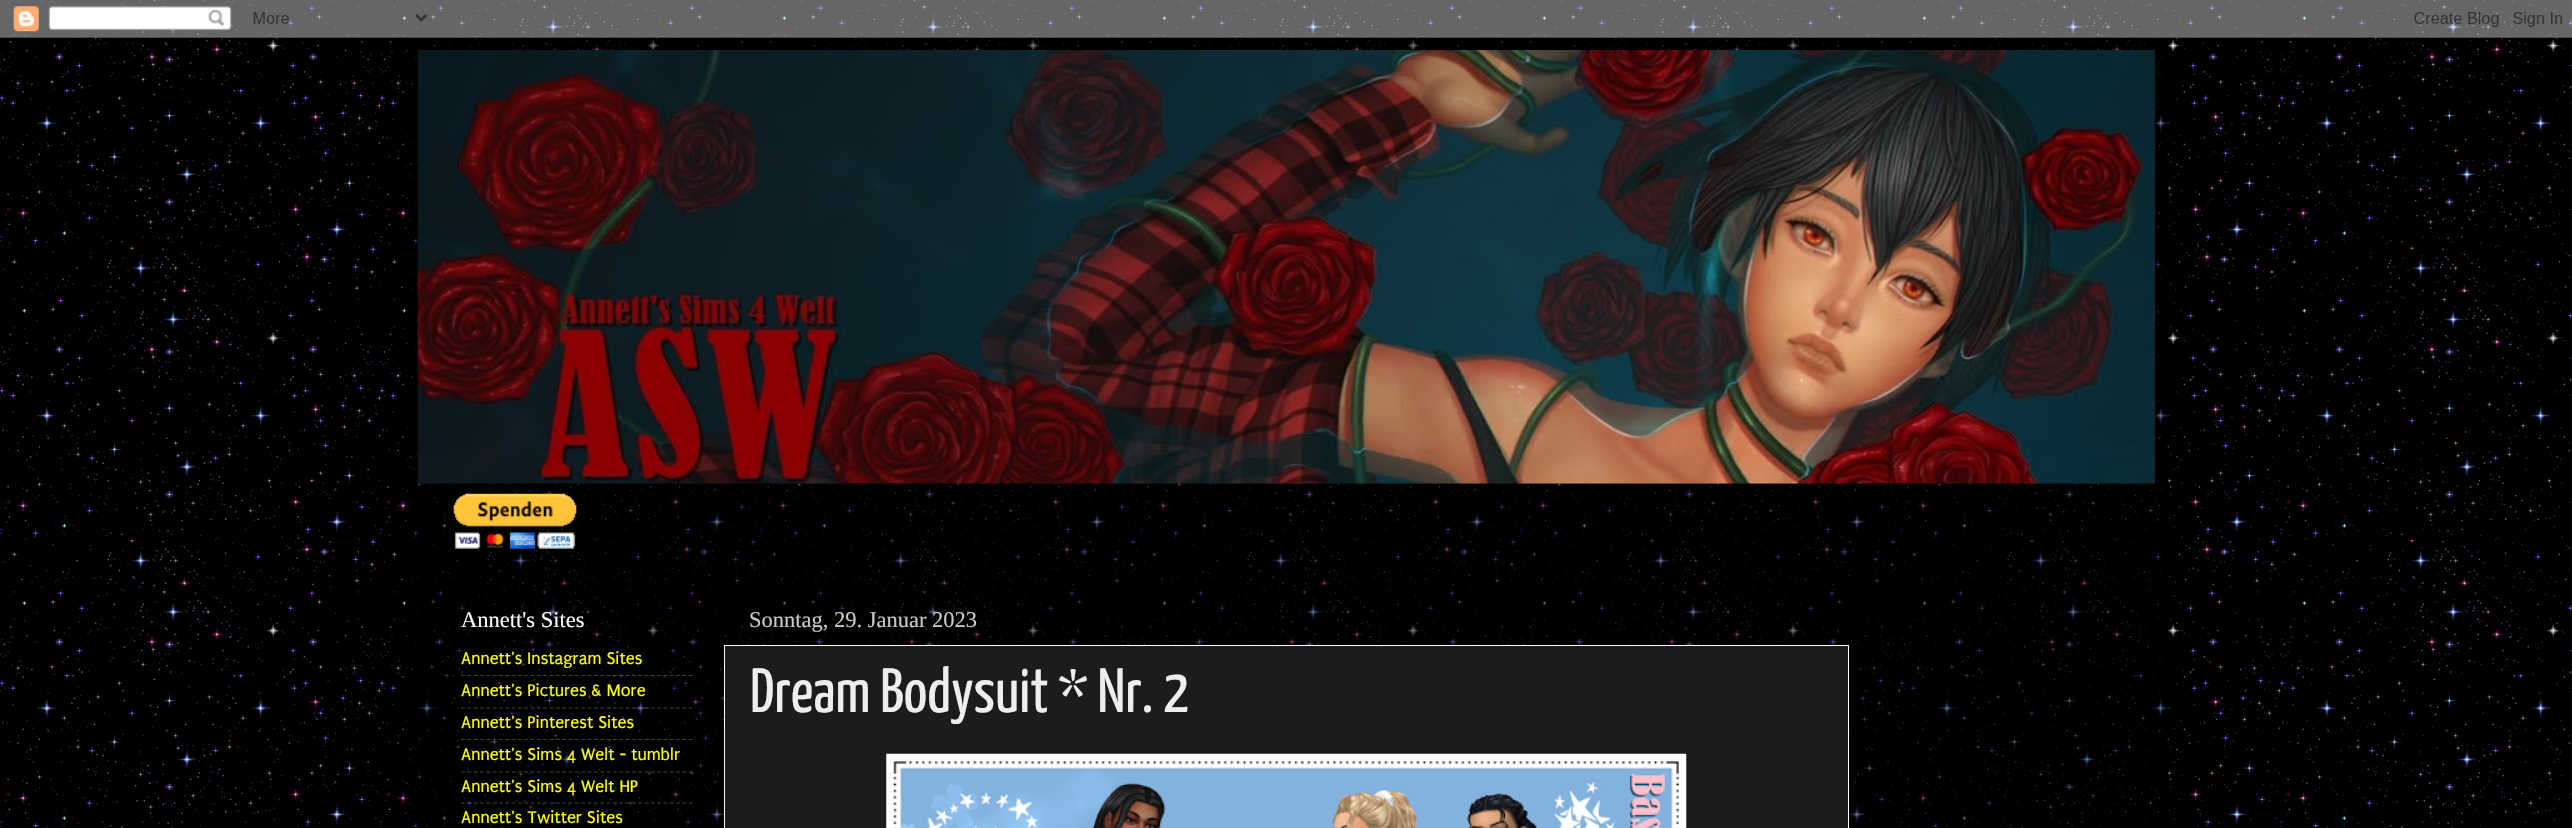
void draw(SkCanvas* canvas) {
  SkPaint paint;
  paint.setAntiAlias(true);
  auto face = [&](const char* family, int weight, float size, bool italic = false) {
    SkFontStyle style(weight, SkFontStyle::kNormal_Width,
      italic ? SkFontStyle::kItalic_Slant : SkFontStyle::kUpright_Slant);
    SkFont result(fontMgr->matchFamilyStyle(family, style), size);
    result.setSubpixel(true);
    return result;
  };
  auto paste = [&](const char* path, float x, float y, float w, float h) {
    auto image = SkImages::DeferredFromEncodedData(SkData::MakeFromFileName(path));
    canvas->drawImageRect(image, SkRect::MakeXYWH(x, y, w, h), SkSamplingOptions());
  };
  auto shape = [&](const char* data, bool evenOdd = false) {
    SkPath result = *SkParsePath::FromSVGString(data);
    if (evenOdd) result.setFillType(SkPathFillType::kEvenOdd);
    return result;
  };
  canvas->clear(0xffffffff);
  paste("img/1.png", 0, 0, 2572, 828);
  canvas->save();
  canvas->clipPath(shape("M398 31H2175V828H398ZM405 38H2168V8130H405Z", true), true);
  paint.setColor(0x26000000);
  paint.setMaskFilter(SkMaskFilter::MakeBlur(kNormal_SkBlurStyle, 2));
  canvas->drawRect(SkRect::MakeXYWH(405, 38, 1763, 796), paint);
  paint.setMaskFilter(nullptr);
  canvas->restore();
  paint.setColor(0x80000000);
  canvas->drawRect(SkRect::MakeXYWH(405, 37, 1763, 791), paint);
  paste("img/2.png", 0, 0, 2572, 38);
  paste("img/3.png", 417, 50, 1738, 434);
  paste("img/4.png", 453, 493, 124, 56);
  paint.setStroke(true);
  paint.setStrokeWidth(1.2f);
  paint.setColor(0x80808080);
  paint.setPathEffect(SkDashPathEffect::Make({{3.75f, 2.58f}}, 0));
  canvas->drawPath(shape("M461 675.5H692.5"), paint);
  paint.setPathEffect(nullptr);
  paint.setPathEffect(SkDashPathEffect::Make({{3.75f, 2.58f}}, 0));
  canvas->drawPath(shape("M461 708H692.5"), paint);
  paint.setPathEffect(nullptr);
  paint.setPathEffect(SkDashPathEffect::Make({{3.75f, 2.58f}}, 0));
  canvas->drawPath(shape("M461 739.5H692.5"), paint);
  paint.setPathEffect(nullptr);
  paint.setPathEffect(SkDashPathEffect::Make({{3.75f, 2.58f}}, 0));
  canvas->drawPath(shape("M461 772H692.5"), paint);
  paint.setPathEffect(nullptr);
  paint.setPathEffect(SkDashPathEffect::Make({{3.75f, 2.58f}}, 0));
  canvas->drawPath(shape("M461 803H692.5"), paint);
  paint.setPathEffect(nullptr);
  paint.setStroke(false);
  paint.setColor(0xff1c1c1c);
  canvas->drawRect(SkRect::MakeXYWH(724.5f, 645.5f, 1124, 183), paint);
  paint.setStroke(true);
  paint.setStrokeWidth(1);
  paint.setColor(0xffffffff);
  canvas->drawRect(SkRect::MakeXYWH(724.5f, 645.5f, 1124, 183), paint);
  paste("img/5.png", 886, 753, 801, 75);
  auto f0 = face("Liberation Serif", 400, 22.5f);
  paint.setStroke(false);
  canvas->drawString("Annett's Sites", 461, 627, f0, paint);
  auto f1 = face("Puritan", 400, 18);
  paint.setColor(0xffffff00);
  {
    const struct { const char* s; float x, y; } items[] = {
      {"Annett's Instagram Sites", 461, 664},
      {"Annett's Pictures & More", 461, 696},
      {"Annett's Pinterest Sites", 461, 728},
      {"Annett's Sims 4 Welt - tumblr", 461, 760},
      {"Annett's Sims 4 Welt HP", 461, 792},
      {"Annett's Twitter Sites", 461, 823},
    };
    for (auto [s, x, y] : items) {
      canvas->drawString(s, x, y, f1, paint);
    }
  }
  paint.setColor(0xffcccccc);
  canvas->drawString("Sonntag, 29. Januar 2023", 749, 627, f0, paint);
  auto f2 = face("Yanone Kaffeesatz", 200, 62.5f);
  paint.setColor(0xffeeeeee);
  canvas->drawString("Dream Bodysuit * Nr. 2", 750, 712, f2, paint);
}
